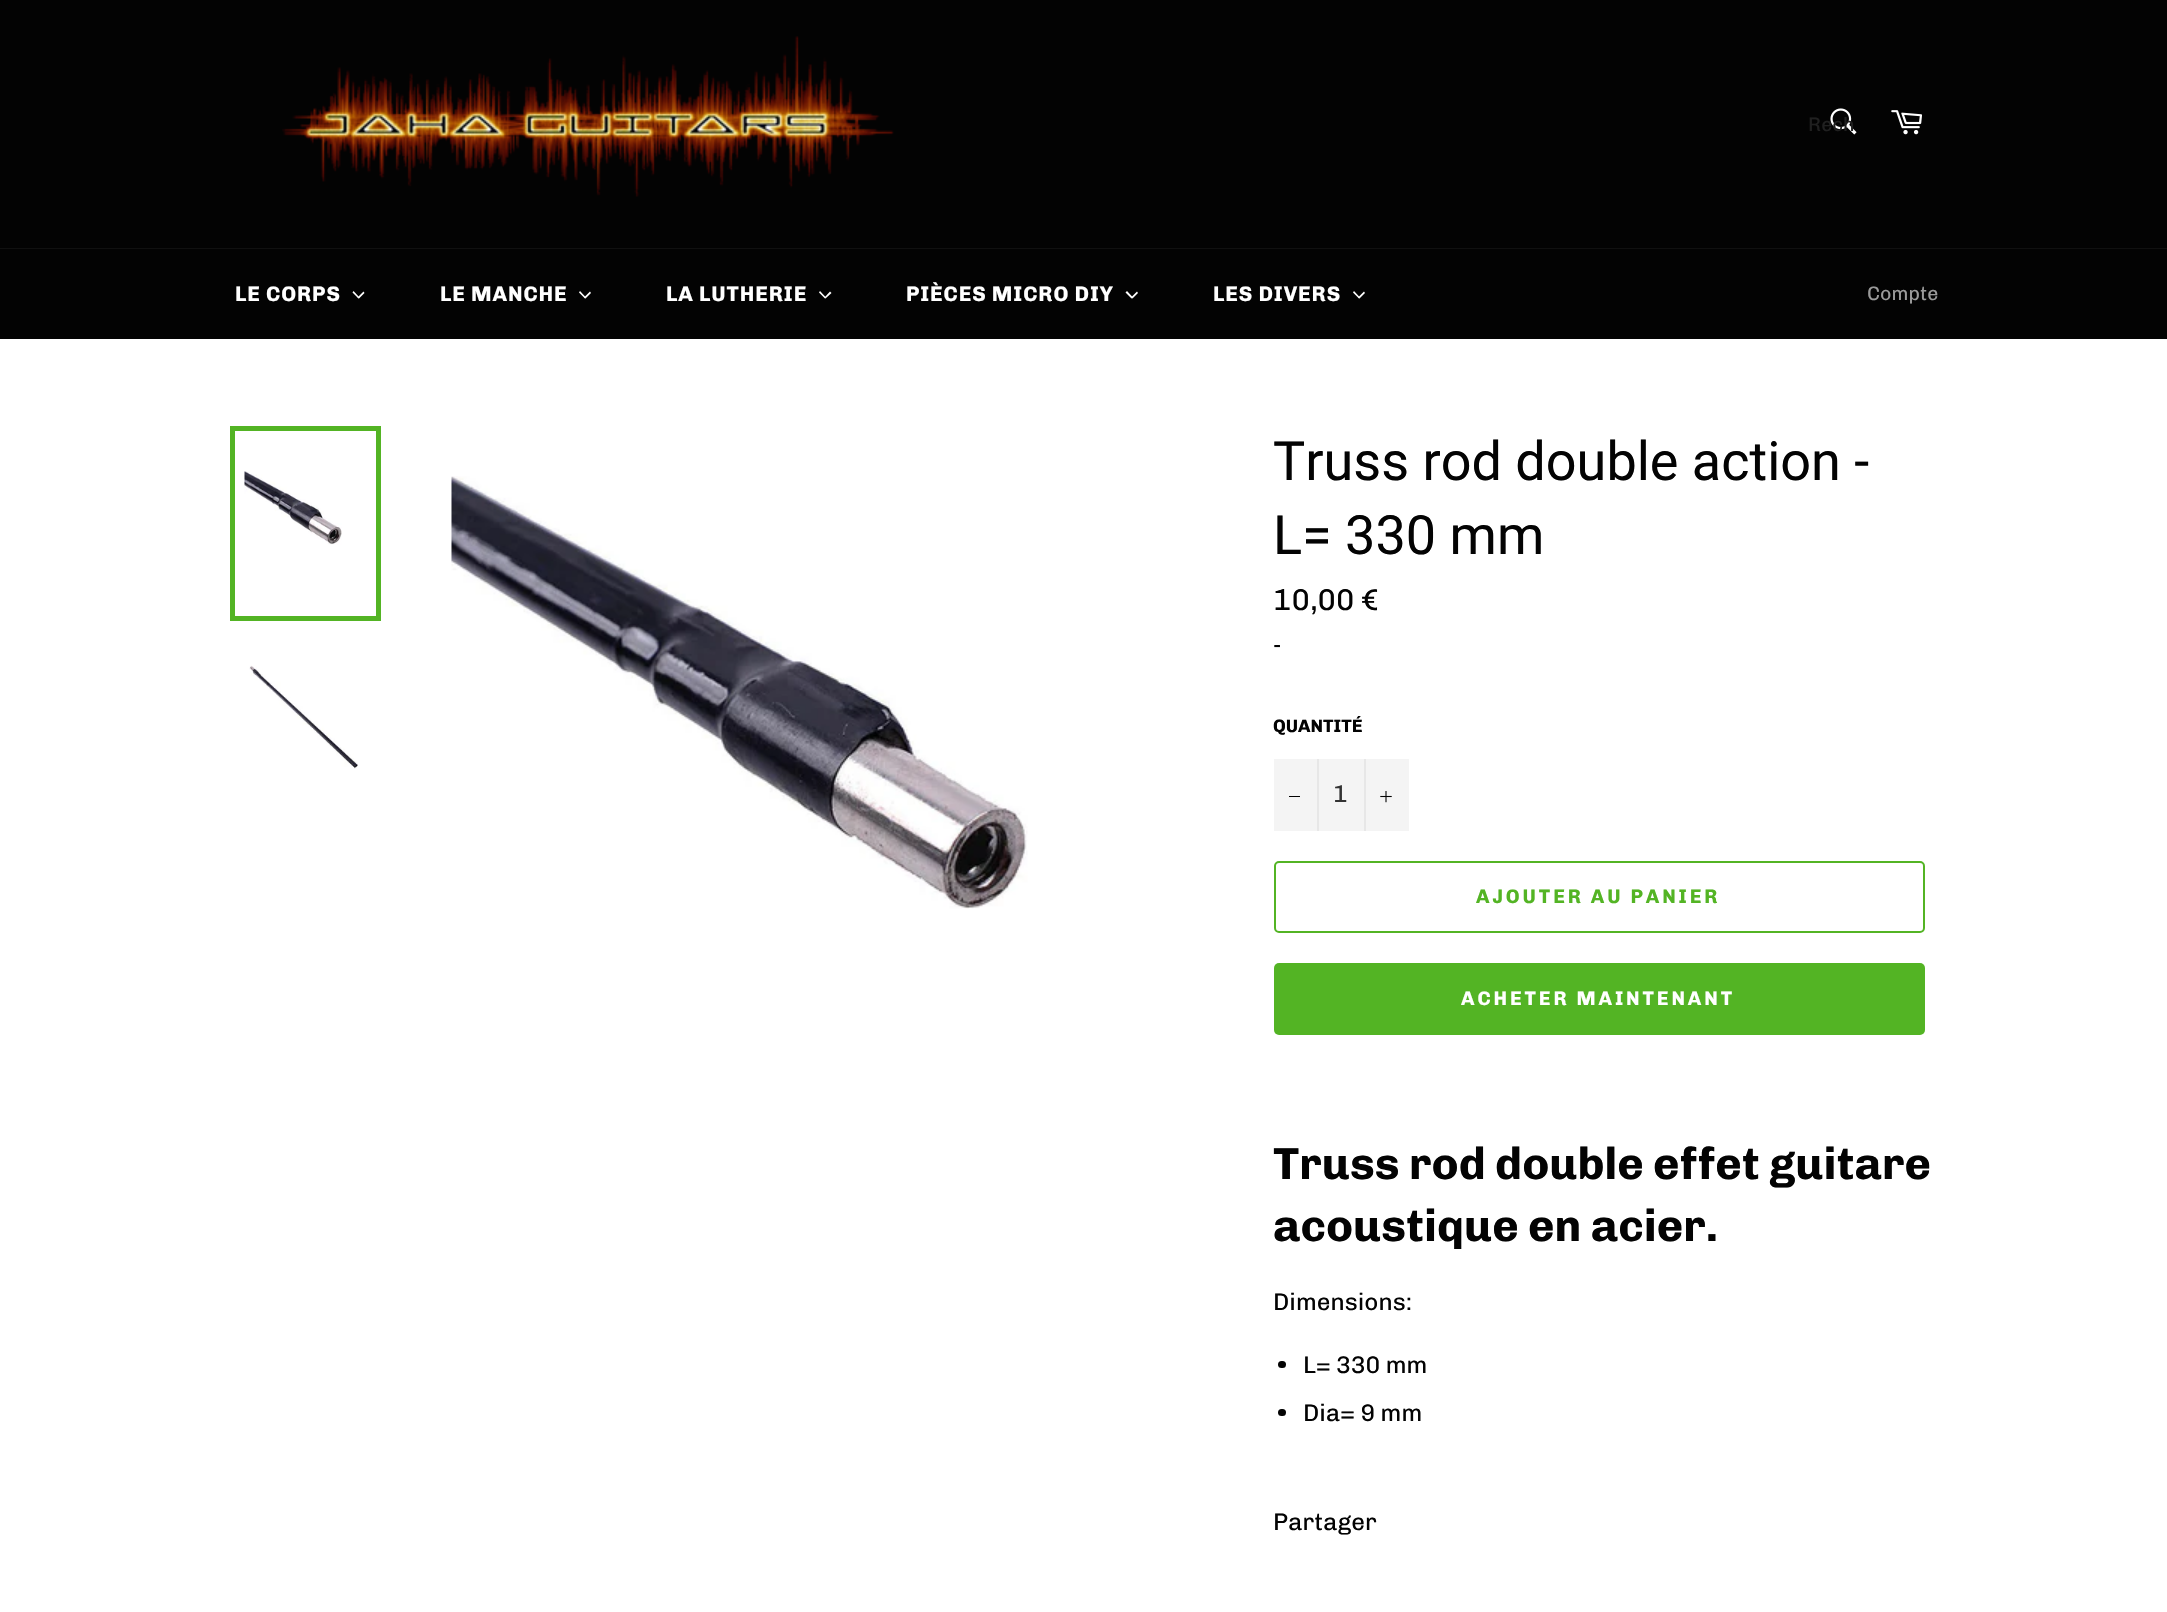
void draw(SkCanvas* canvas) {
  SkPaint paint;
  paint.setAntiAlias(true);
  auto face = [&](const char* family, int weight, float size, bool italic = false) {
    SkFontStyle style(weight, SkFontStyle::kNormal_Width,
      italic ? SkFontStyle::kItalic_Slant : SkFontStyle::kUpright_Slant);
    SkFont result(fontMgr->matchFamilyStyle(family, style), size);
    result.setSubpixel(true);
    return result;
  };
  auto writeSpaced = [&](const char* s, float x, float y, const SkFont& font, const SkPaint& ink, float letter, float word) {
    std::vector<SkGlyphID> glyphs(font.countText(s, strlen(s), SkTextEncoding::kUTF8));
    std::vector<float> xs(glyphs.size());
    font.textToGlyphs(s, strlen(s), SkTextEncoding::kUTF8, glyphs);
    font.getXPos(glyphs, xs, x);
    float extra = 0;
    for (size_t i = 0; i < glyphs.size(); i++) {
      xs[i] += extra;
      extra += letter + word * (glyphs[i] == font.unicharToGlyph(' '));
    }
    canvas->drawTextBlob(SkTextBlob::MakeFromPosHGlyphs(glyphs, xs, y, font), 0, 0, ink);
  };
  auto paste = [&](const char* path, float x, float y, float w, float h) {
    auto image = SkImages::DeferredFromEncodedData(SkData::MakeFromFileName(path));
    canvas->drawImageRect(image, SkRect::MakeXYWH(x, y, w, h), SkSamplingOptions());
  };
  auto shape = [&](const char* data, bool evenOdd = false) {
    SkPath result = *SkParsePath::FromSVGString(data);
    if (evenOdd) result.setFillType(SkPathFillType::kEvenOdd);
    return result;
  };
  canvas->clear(0xffffffff);
  paint.setColor(0xff030303);
  canvas->drawRect(SkRect::MakeXYWH(0, 0, 2167, 248), paint);
  paste("img/1.png", 282, 36, 612, 161);
  paste("img/2.png", 1830, 108, 27, 27);
  paste("img/3.png", 1891, 110, 31, 25);
  paint.setColor(0xff101010);
  canvas->drawRect(SkRect::MakeXYWH(0, 248, 2167, 1), paint);
  paint.setColor(0xff030303);
  canvas->drawRect(SkRect::MakeXYWH(0, 249, 2167, 90), paint);
  paint.setColor(0xffffffff);
  canvas->drawPath(shape("M363.5 291.5L364.5 293L359 298.5L357.5 297.5Z"), paint);
  canvas->drawPath(shape("M353.5 291L359.5 297.5L358.5 298.5L352.5 292.5Z"), paint);
  canvas->drawPath(shape("M590 291.5L591 293L585.5 298.5L584 297.5Z"), paint);
  canvas->drawPath(shape("M580 291L586 297.5L585 298.5L579 292.5Z"), paint);
  canvas->drawPath(shape("M830 291.5L831.5 293L825.5 298.5L824.5 297.5Z"), paint);
  canvas->drawPath(shape("M820 291L826 297.5L825 298.5L819 292.5Z"), paint);
  canvas->drawPath(shape("M1137 291.5L1138 293L1132.5 298.5L1131 297.5Z"), paint);
  canvas->drawPath(shape("M1127 291L1133 297.5L1131.5 298.5L1125.5 292.5Z"), paint);
  canvas->drawPath(shape("M1364 291.5L1365 293L1359.5 298.5L1358 297.5Z"), paint);
  canvas->drawPath(shape("M1354 291L1360 297.5L1359 298.5L1353 292.5Z"), paint);
  paste("img/4.png", 244, 471, 98, 74);
  paint.setStroke(true);
  paint.setStrokeWidth(5);
  paint.setColor(0xff53b424);
  canvas->drawRect(SkRect::MakeXYWH(232.5f, 428.5f, 146, 190), paint);
  paste("img/5.png", 249, 665, 109, 104);
  paste("img/6.png", 451, 476, 577, 433);
  paint.setStroke(false);
  {
    const struct { float x, y, w, h; SkColor color; } items[] = {
      {1274, 759, 135, 72, 0xfff4f4f4},
      {1317, 759, 2, 72, 0xffe7e7e7},
      {1289, 796, 11, 1, 0xff030303},
      {1364, 759, 2, 72, 0xffe7e7e7},
    };
    for (auto [x, y, w, h, color] : items) {
      paint.setColor(color);
      canvas->drawRect(SkRect::MakeXYWH(x, y, w, h), paint);
    }
  }
  paste("img/7.png", 1380, 791, 12, 12);
  paint.setStroke(true);
  paint.setStrokeWidth(2);
  paint.setColor(0xff53b424);
  canvas->drawRoundRect(SkRect::MakeXYWH(1275, 862, 649, 70), 4, 4, paint);
  paint.setStroke(false);
  canvas->drawRoundRect(SkRect::MakeXYWH(1274, 963, 651, 72), 5, 5, paint);
  paint.setColor(0xff030303);
  canvas->drawRoundRect(SkRect::MakeXYWH(1278, 1361, 8, 7), 3.5f, 3.5f, paint);
  canvas->drawRoundRect(SkRect::MakeXYWH(1278, 1409, 8, 7), 3.5f, 3.5f, paint);
  auto f0 = face("Chivo", 400, 19.5f);
  paint.setColor(0xff202020);
  canvas->drawString("Rech", 1808, 131, f0, paint);
  auto f1 = face("Chivo", 700, 21);
  paint.setColor(0xffffffff);
  {
    const struct { const char* s; float x, y; } items[] = {
      {"LE CORPS", 235, 301},
      {"LE MANCHE", 440, 301},
      {"LA LUTHERIE", 666, 301},
      {"PIÈCES MICRO DIY", 906, 301},
      {"LES DIVERS", 1213, 301},
    };
    for (auto [s, x, y] : items) {
      writeSpaced(s, x, y, f1, paint, 0.9f, 0);
    }
  }
  paint.setColor(0xff9a9a9a);
  canvas->drawString("Compte", 1867, 300, f0, paint);
  auto f2 = face("Roboto", 400, 54);
  paint.setColor(0xff030303);
  canvas->drawString("Truss rod double action -", 1273, 480, f2, paint);
  canvas->drawString("L= 330 mm", 1273, 554, f2, paint);
  auto f3 = face("Chivo", 400, 30);
  canvas->drawString("10,00 €", 1273, 610, f3, paint);
  auto f4 = face("Chivo", 400, 22);
  canvas->drawString("-", 1273, 652, f4, paint);
  auto f5 = face("Chivo", 700, 18);
  canvas->drawString("QUANTITÉ", 1273, 732, f5, paint);
  auto f6 = face("Chivo", 400, 24);
  paint.setColor(0xff333333);
  canvas->drawString("1", 1333, 802, f6, paint);
  auto f7 = face("Chivo", 700, 19.5f);
  paint.setColor(0xff53b424);
  writeSpaced("AJOUTER AU PANIER", 1476, 903, f7, paint, 2.9f, 0);
  paint.setColor(0xffffffff);
  writeSpaced("ACHETER MAINTENANT", 1461, 1005, f7, paint, 2.9f, 0);
  auto f8 = face("Chivo", 700, 45);
  paint.setColor(0xff030303);
  canvas->drawString("Truss rod double effet guitare", 1273, 1179, f8, paint);
  canvas->drawString("acoustique en acier.", 1273, 1241, f8, paint);
  {
    const struct { const char* s; float x, y; } items[] = {
      {"Dimensions:", 1273, 1310},
      {"L= 330 mm", 1303, 1373},
      {"Dia= 9 mm", 1303, 1421},
      {"Partager", 1273, 1530},
    };
    for (auto [s, x, y] : items) {
      canvas->drawString(s, x, y, f6, paint);
    }
  }
}
